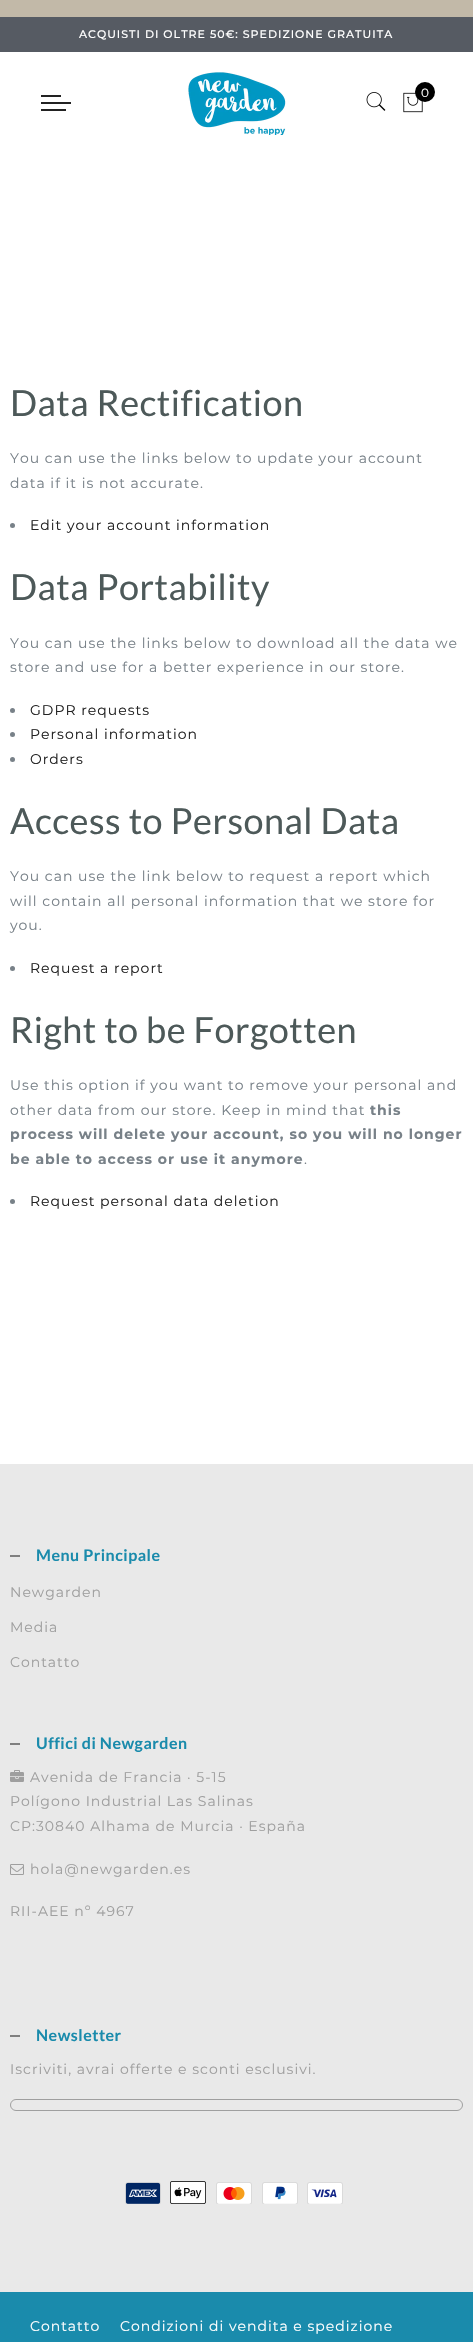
void draw(SkCanvas* canvas) {
  SkPaint paint;
  paint.setAntiAlias(true);
  auto face = [&](const char* family, int weight, float size, bool italic = false) {
    SkFontStyle style(weight, SkFontStyle::kNormal_Width,
      italic ? SkFontStyle::kItalic_Slant : SkFontStyle::kUpright_Slant);
    SkFont result(fontMgr->matchFamilyStyle(family, style), size);
    result.setSubpixel(true);
    return result;
  };
  auto writeSpaced = [&](const char* s, float x, float y, const SkFont& font, const SkPaint& ink, float letter, float word) {
    std::vector<SkGlyphID> glyphs(font.countText(s, strlen(s), SkTextEncoding::kUTF8));
    std::vector<float> xs(glyphs.size());
    font.textToGlyphs(s, strlen(s), SkTextEncoding::kUTF8, glyphs);
    font.getXPos(glyphs, xs, x);
    float extra = 0;
    for (size_t i = 0; i < glyphs.size(); i++) {
      xs[i] += extra;
      extra += letter + word * (glyphs[i] == font.unicharToGlyph(' '));
    }
    canvas->drawTextBlob(SkTextBlob::MakeFromPosHGlyphs(glyphs, xs, y, font), 0, 0, ink);
  };
  auto paste = [&](const char* path, float x, float y, float w, float h) {
    auto image = SkImages::DeferredFromEncodedData(SkData::MakeFromFileName(path));
    canvas->drawImageRect(image, SkRect::MakeXYWH(x, y, w, h), SkSamplingOptions());
  };
  canvas->clear(0xffffffff);
  paint.setColor(0xffc2b9a8);
  canvas->drawRect(SkRect::MakeXYWH(0, 0, 473, 17), paint);
  paint.setColor(0xff565b63);
  canvas->drawRect(SkRect::MakeXYWH(0, 17, 473, 35), paint);
  paste("img/1.png", 188, 72, 98, 63);
  paste("img/2.png", 366, 92, 20, 19);
  paste("img/3.png", 403, 92, 20, 21);
  paint.setColor(0xff000000);
  canvas->drawCircle(425, 92, 10, paint);
  {
    const struct { float x, y, w, h; SkColor color; } items[] = {
      {41, 95, 20, 2, 0xff222222},
      {41, 102, 30, 2, 0xff222222},
      {41, 109, 25, 2, 0xff222222},
    };
    for (auto [x, y, w, h, color] : items) {
      paint.setColor(color);
      canvas->drawRect(SkRect::MakeXYWH(x, y, w, h), paint);
    }
  }
  paint.setColor(0xff788188);
  canvas->drawCircle(12.5f, 525.5f, 2.5f, paint);
  canvas->drawCircle(12.5f, 710.5f, 2.5f, paint);
  canvas->drawCircle(12.5f, 734.5f, 2.5f, paint);
  canvas->drawCircle(12.5f, 759.5f, 2.5f, paint);
  canvas->drawCircle(12.5f, 968.5f, 2.5f, paint);
  canvas->drawCircle(12.5f, 1201.5f, 2.5f, paint);
  {
    const struct { float x, y, w, h; SkColor color; } items[] = {
      {0, 1464, 473, 828, 0xffe9e9e9},
      {10, 1555, 10, 2, 0xff808080},
      {10, 1743, 10, 2, 0xff808080},
    };
    for (auto [x, y, w, h, color] : items) {
      paint.setColor(color);
      canvas->drawRect(SkRect::MakeXYWH(x, y, w, h), paint);
    }
  }
  paste("img/4.png", 10, 1770, 14, 12);
  paste("img/5.png", 10, 1864, 14, 11);
  canvas->drawRect(SkRect::MakeXYWH(10, 2035, 10, 2), paint);
  paint.setStroke(true);
  paint.setStrokeWidth(1);
  paint.setColor(0xff9f9f9f);
  canvas->drawRoundRect(SkRect::MakeXYWH(10.5f, 2099.5f, 452, 11), 5.5f, 5.5f, paint);
  paste("img/6.png", 125, 2182, 36, 22);
  paste("img/7.png", 170, 2181, 36, 23);
  paste("img/8.png", 216, 2182, 36, 22);
  paste("img/9.png", 262, 2182, 36, 22);
  paste("img/10.png", 307, 2182, 36, 22);
  paint.setStroke(false);
  paint.setColor(0xff1a8bac);
  canvas->drawRect(SkRect::MakeXYWH(0, 2292, 473, 50), paint);
  auto f0 = face("Montserrat", 500, 11);
  paint.setColor(0xffffffff);
  writeSpaced("ACQUISTI DI OLTRE 50€: SPEDIZIONE GRATUITA", 79, 38, f0, paint, 1, 0);
  auto f1 = face("Montserrat", 100, 12);
  writeSpaced("0", 421, 97, f1, paint, 1, 0);
  auto f2 = face("Lato", 400, 36);
  paint.setColor(0xff4d5959);
  writeSpaced("Data Rectification", 10, 416, f2, paint, 0.5f, 0);
  auto f3 = face("Montserrat", 100, 14);
  paint.setColor(0xff788188);
  writeSpaced("You can use the links below to update your account", 10, 463, f3, paint, 1, 0);
  writeSpaced("data if it is not accurate.", 10, 488, f3, paint, 1, 0);
  paint.setColor(0xff222222);
  writeSpaced("Edit your account information", 30, 530, f3, paint, 1, 0);
  paint.setColor(0xff4d5959);
  writeSpaced("Data Portability", 10, 600, f2, paint, 0.5f, 0);
  paint.setColor(0xff788188);
  writeSpaced("You can use the links below to download all the data we", 10, 648, f3, paint, 1, 0);
  writeSpaced("store and use for a better experience in our store.", 10, 672, f3, paint, 1, 0);
  paint.setColor(0xff222222);
  {
    const struct { const char* s; float x, y; } items[] = {
      {"GDPR requests", 30, 715},
      {"Personal information", 30, 739},
      {"Orders", 30, 764},
    };
    for (auto [s, x, y] : items) {
      writeSpaced(s, x, y, f3, paint, 1, 0);
    }
  }
  paint.setColor(0xff4d5959);
  writeSpaced("Access to Personal Data", 10, 834, f2, paint, 0.5f, 0);
  paint.setColor(0xff788188);
  {
    const struct { const char* s; float x, y; } items[] = {
      {"You can use the link below to request a report which", 10, 881},
      {"will contain all personal information that we store for", 10, 906},
      {"you.", 10, 930},
    };
    for (auto [s, x, y] : items) {
      writeSpaced(s, x, y, f3, paint, 1, 0);
    }
  }
  paint.setColor(0xff222222);
  writeSpaced("Request a report", 30, 973, f3, paint, 1, 0);
  paint.setColor(0xff4d5959);
  writeSpaced("Right to be Forgotten", 10, 1043, f2, paint, 0.5f, 0);
  paint.setColor(0xff788188);
  writeSpaced("Use this option if you want to remove your personal and", 10, 1090, f3, paint, 1, 0);
  writeSpaced("other data from our store. Keep in mind that", 10, 1115, f3, paint, 1, 0);
  auto f4 = face("Montserrat", 700, 14);
  {
    const struct { const char* s; float x, y; } items[] = {
      {"this", 370, 1115},
      {"process will delete your account, so you will no longer", 10, 1139},
      {"be able to access or use it anymore", 10, 1164},
    };
    for (auto [s, x, y] : items) {
      writeSpaced(s, x, y, f4, paint, 1, 0);
    }
  }
  writeSpaced(".", 304, 1164, f3, paint, 1, 0);
  paint.setColor(0xff222222);
  writeSpaced("Request personal data deletion", 30, 1206, f3, paint, 1, 0);
  auto f5 = face("Lato", 700, 16);
  paint.setColor(0xff1a8bac);
  writeSpaced("Menu Principale", 36, 1561, f5, paint, 0.5f, 0);
  paint.setColor(0xff9f9f9f);
  {
    const struct { const char* s; float x, y; } items[] = {
      {"Newgarden", 10, 1597},
      {"Media", 10, 1632},
      {"Contatto", 10, 1667},
    };
    for (auto [s, x, y] : items) {
      writeSpaced(s, x, y, f3, paint, 1, 0);
    }
  }
  paint.setColor(0xff1a8bac);
  writeSpaced("Uffici di Newgarden", 36, 1749, f5, paint, 0.5f, 0);
  paint.setColor(0xff9f9f9f);
  {
    const struct { const char* s; float x, y; } items[] = {
      {"Avenida de Francia · 5-15", 30, 1782},
      {"Polígono Industrial Las Salinas", 10, 1806},
      {"CP:30840 Alhama de Murcia · España", 10, 1831},
      {"hola@newgarden.es", 30, 1874},
      {"RII-AEE nº 4967", 10, 1916},
    };
    for (auto [s, x, y] : items) {
      writeSpaced(s, x, y, f3, paint, 1, 0);
    }
  }
  paint.setColor(0xff1a8bac);
  writeSpaced("Newsletter", 36, 2041, f5, paint, 0.5f, 0);
  paint.setColor(0xff9f9f9f);
  writeSpaced("Iscriviti, avrai offerte e sconti esclusivi.", 10, 2074, f3, paint, 1, 0);
  paint.setColor(0xffffffff);
  writeSpaced("Contatto", 30, 2331, f3, paint, 1, 0);
  writeSpaced("Condizioni di vendita e spedizione", 120, 2331, f3, paint, 1, 0);
}
